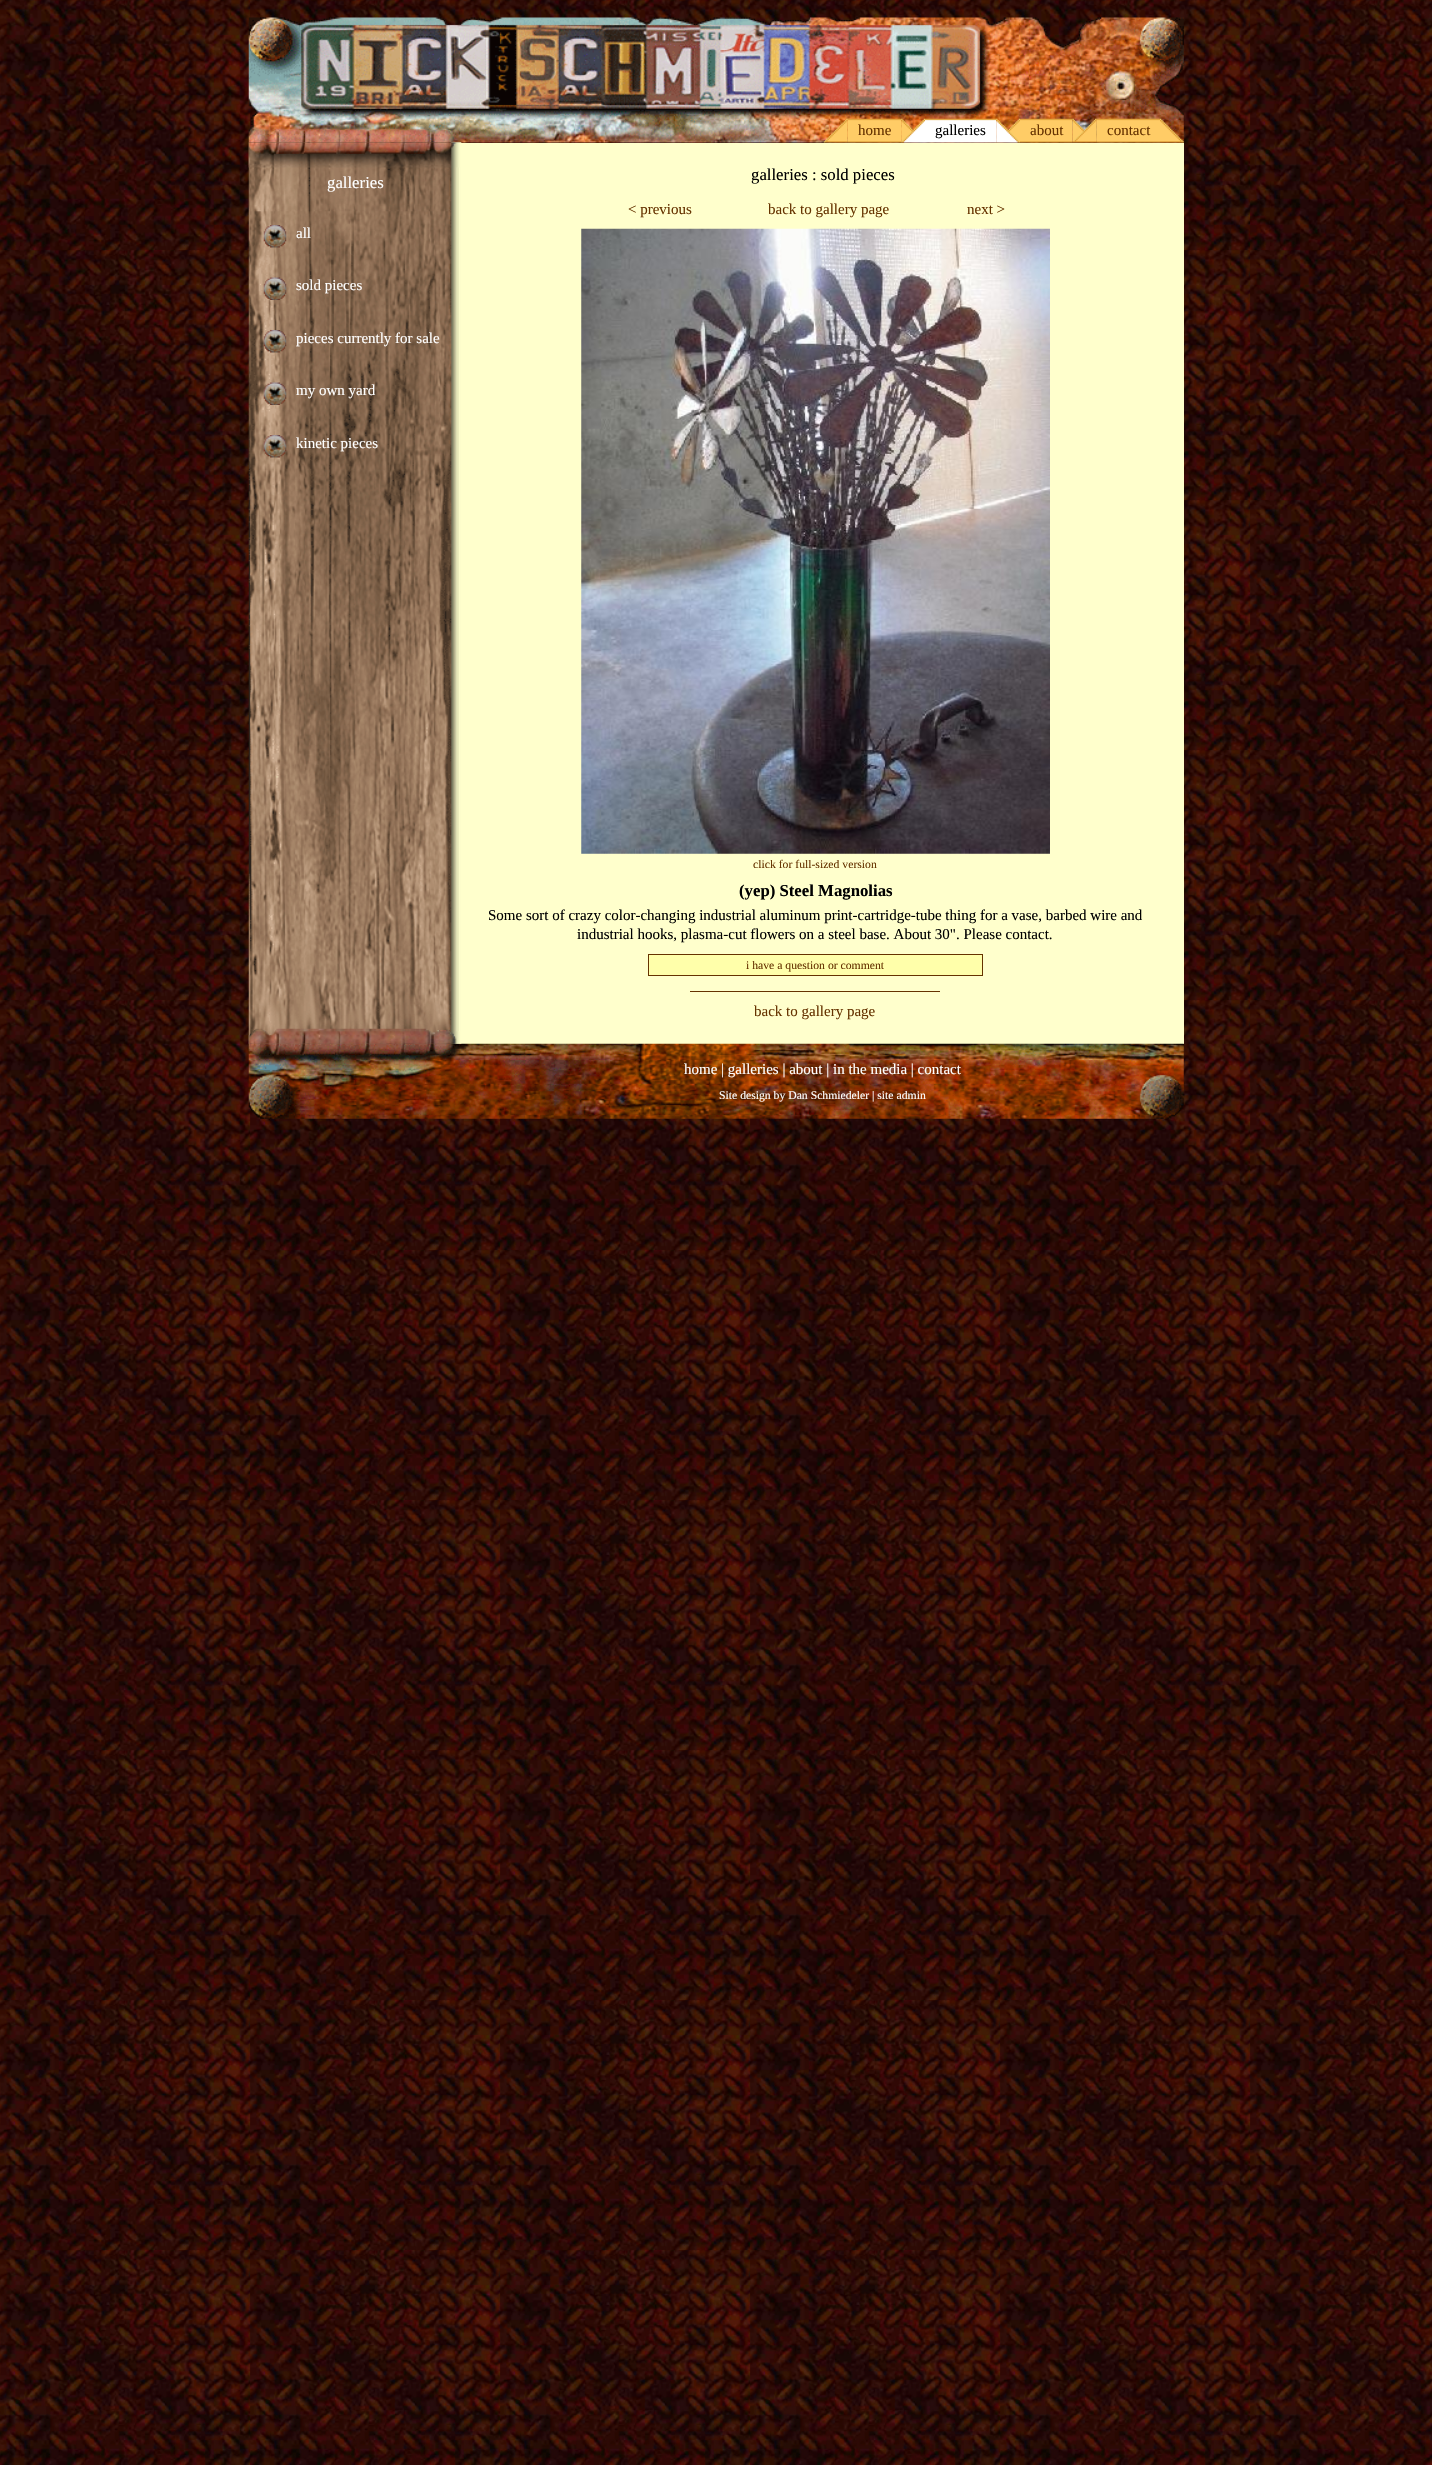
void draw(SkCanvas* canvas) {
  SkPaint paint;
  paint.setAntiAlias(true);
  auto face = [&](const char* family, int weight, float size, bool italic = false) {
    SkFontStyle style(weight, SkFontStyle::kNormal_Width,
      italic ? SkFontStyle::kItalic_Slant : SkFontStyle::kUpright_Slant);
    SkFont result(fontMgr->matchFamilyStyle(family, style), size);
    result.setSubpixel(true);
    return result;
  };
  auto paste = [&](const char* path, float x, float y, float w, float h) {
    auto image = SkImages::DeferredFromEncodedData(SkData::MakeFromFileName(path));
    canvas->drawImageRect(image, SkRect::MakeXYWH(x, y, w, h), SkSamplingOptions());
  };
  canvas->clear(0xffffffff);
  paste("img/1.png", 0, 0, 1432, 2465);
  paste("img/2.png", 248, 17, 936, 126);
  paste("img/4.png", 847, 118, 55, 25);
  paste("img/3.png", 823, 118, 25, 25);
  paste("img/5.png", 901, 118, 24, 25);
  paste("img/6.png", 925, 118, 72, 25);
  paste("img/7.png", 996, 118, 24, 25);
  paste("img/8.png", 1020, 118, 53, 25);
  paste("img/10.png", 1096, 118, 64, 25);
  paste("img/9.png", 1072, 118, 25, 25);
  paste("img/11.png", 1160, 118, 24, 25);
  paste("img/12.png", 248, 142, 214, 902);
  paint.setColor(0xffffffcc);
  canvas->drawRect(SkRect::MakeXYWH(461, 143, 723, 901), paint);
  paste("img/13.png", 248, 142, 214, 26);
  paste("img/14.png", 263, 225, 24, 23);
  paste("img/15.png", 263, 277, 24, 23);
  paste("img/16.png", 263, 330, 24, 23);
  paste("img/17.png", 263, 382, 24, 23);
  paste("img/18.png", 263, 435, 24, 23);
  paste("img/21.png", 248, 1043, 936, 76);
  paste("img/19.png", 248, 1028, 214, 16);
  paste("img/20.png", 581, 228, 469, 626);
  paint.setColor(0xffffffaa);
  canvas->drawRect(SkRect::MakeXYWH(648.5f, 954.5f, 334, 21), paint);
  paint.setStroke(true);
  paint.setStrokeWidth(1);
  paint.setColor(0xff663300);
  canvas->drawRect(SkRect::MakeXYWH(648.5f, 954.5f, 334, 21), paint);
  paint.setStroke(false);
  canvas->drawRect(SkRect::MakeXYWH(690, 991, 250, 1), paint);
  auto f0 = face("Liberation Serif", 400, 15);
  canvas->drawString("home", 858, 135, f0, paint);
  paint.setColor(0xff000000);
  canvas->drawString("galleries", 935, 135, f0, paint);
  paint.setColor(0xff663300);
  canvas->drawString("about", 1030, 135, f0, paint);
  canvas->drawString("contact", 1107, 135, f0, paint);
  auto f1 = face("Liberation Serif", 400, 16.75f);
  paint.setColor(0xffffffff);
  canvas->drawString("galleries", 327, 188, f1, paint);
  {
    const struct { const char* s; float x, y; } items[] = {
      {"all", 296, 238},
      {"sold pieces", 296, 290},
      {"pieces currently for sale", 296, 343},
      {"my own yard", 296, 395},
      {"kinetic pieces", 296, 448},
    };
    for (auto [s, x, y] : items) {
      canvas->drawString(s, x, y, f0, paint);
    }
  }
  paint.setColor(0xff000000);
  canvas->drawString("galleries : sold pieces", 751, 180, f1, paint);
  paint.setColor(0xff663300);
  {
    const struct { const char* s; float x, y; } items[] = {
      {"< previous", 628, 214},
      {"back to gallery page", 768, 214},
      {"next >", 967, 214},
    };
    for (auto [s, x, y] : items) {
      canvas->drawString(s, x, y, f0, paint);
    }
  }
  auto f2 = face("Liberation Serif", 400, 11.7f);
  canvas->drawString("click for full-sized version", 753, 868, f2, paint);
  auto f3 = face("Liberation Serif", 700, 16.75f);
  paint.setColor(0xff000000);
  canvas->drawString("(yep) Steel Magnolias", 739, 896, f3, paint);
  canvas->drawString("Some sort of crazy color-changing industrial aluminum print-cartridge-tube thing for a vase, barbed wire and", 488, 920, f0, paint);
  canvas->drawString("industrial hooks, plasma-cut flowers on a steel base. About 30\". Please contact.", 577, 939, f0, paint);
  paint.setColor(0xff663300);
  canvas->drawString("i have a question or comment", 746, 969, f2, paint);
  canvas->drawString("back to gallery page", 754, 1016, f0, paint);
  paint.setColor(0xffffffff);
  canvas->drawString("home | galleries | about | in the media | contact", 684, 1074, f0, paint);
  canvas->drawString("Site design by Dan Schmiedeler | site admin", 719, 1099, f2, paint);
}
